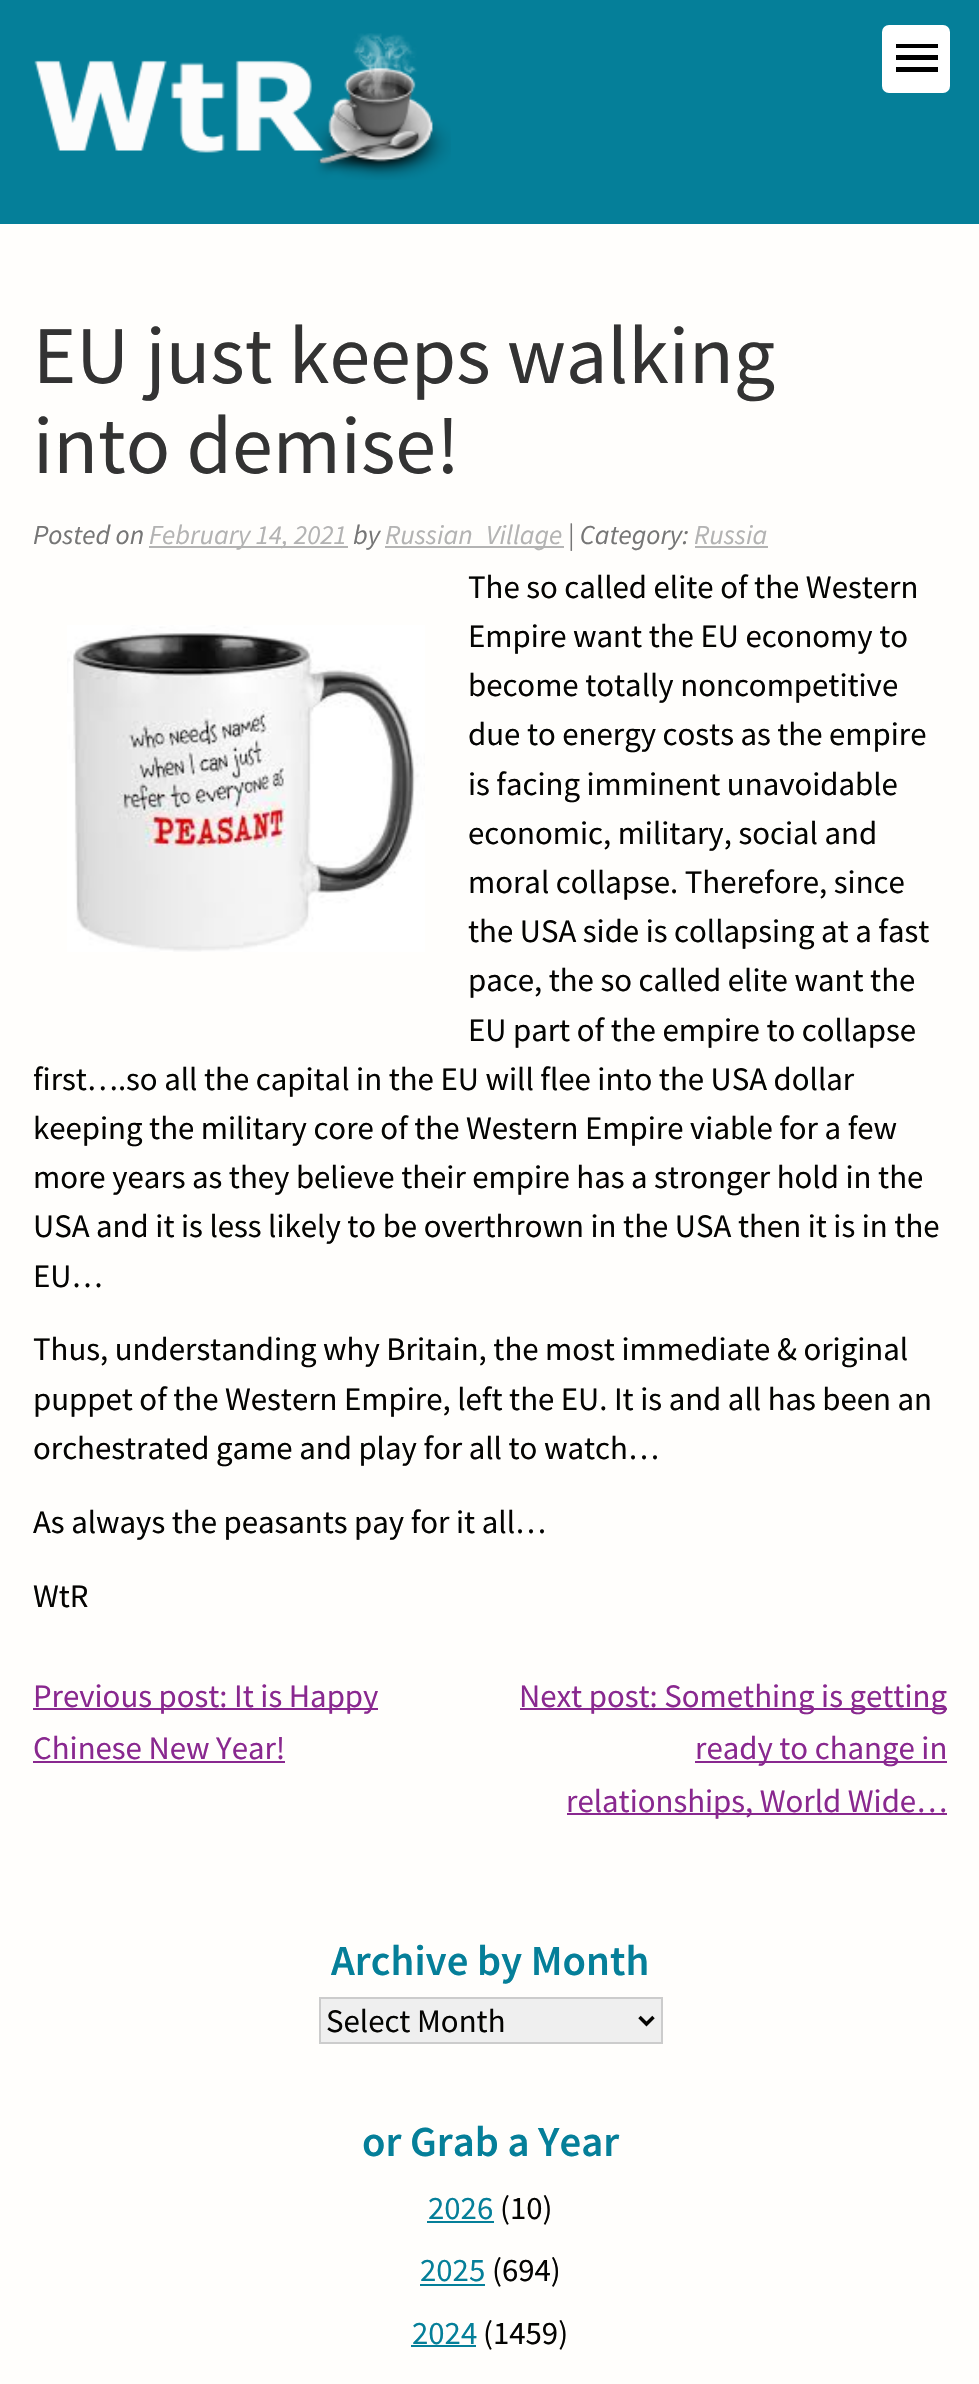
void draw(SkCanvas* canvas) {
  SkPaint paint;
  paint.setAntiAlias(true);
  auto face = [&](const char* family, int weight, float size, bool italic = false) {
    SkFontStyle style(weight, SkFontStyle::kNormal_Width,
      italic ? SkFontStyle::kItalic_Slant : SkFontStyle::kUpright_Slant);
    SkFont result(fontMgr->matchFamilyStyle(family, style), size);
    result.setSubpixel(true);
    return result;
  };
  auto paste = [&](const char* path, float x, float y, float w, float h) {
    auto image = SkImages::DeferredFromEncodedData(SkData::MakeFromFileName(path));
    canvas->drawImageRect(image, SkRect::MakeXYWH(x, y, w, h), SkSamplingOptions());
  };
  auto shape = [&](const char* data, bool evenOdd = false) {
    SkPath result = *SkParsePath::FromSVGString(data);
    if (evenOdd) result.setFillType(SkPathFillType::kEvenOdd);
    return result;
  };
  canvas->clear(0xfffffefc);
  paint.setColor(0xff057f99);
  canvas->drawRect(SkRect::MakeXYWH(0, 0, 979, 224), paint);
  paste("img/1.png", 34, 33, 417, 147);
  paint.setColor(0xffffffff);
  canvas->drawRoundRect(SkRect::MakeXYWH(882, 25, 68, 68), 7, 7, paint);
  paint.setColor(0xff000000);
  canvas->drawPath(shape("M896 72H938V67H896ZM896 60H938V55H896ZM896 44V48H938V44Z"), paint);
  {
    const struct { float x, y, w, h; SkColor color; } items[] = {
      {149, 546, 199, 2, 0xffb3b3b3},
      {385, 546, 179, 2, 0xffb3b3b3},
      {695, 546, 73, 2, 0xffb3b3b3},
    };
    for (auto [x, y, w, h, color] : items) {
      paint.setColor(color);
      canvas->drawRect(SkRect::MakeXYWH(x, y, w, h), paint);
    }
  }
  paste("img/2.png", 67, 625, 358, 327);
  {
    const struct { float x, y, w, h; SkColor color; } items[] = {
      {33, 1708, 345, 2, 0xff89288f},
      {33, 1761, 252, 2, 0xff89288f},
      {520, 1708, 427, 2, 0xff89288f},
      {695, 1761, 252, 2, 0xff89288f},
      {567, 1813, 380, 2, 0xff89288f},
    };
    for (auto [x, y, w, h, color] : items) {
      paint.setColor(color);
      canvas->drawRect(SkRect::MakeXYWH(x, y, w, h), paint);
    }
  }
  paint.setColor(0xffefefef);
  canvas->drawRect(SkRect::MakeXYWH(320, 1998, 342, 45), paint);
  paint.setStroke(true);
  paint.setStrokeWidth(2);
  paint.setColor(0xffcccccc);
  canvas->drawRect(SkRect::MakeXYWH(320, 1998, 342, 45), paint);
  paint.setStrokeWidth(3.5f);
  paint.setColor(0xff040402);
  canvas->drawPath(shape("M639.5 2017L646.5 2024L653.5 2017"), paint);
  paint.setStroke(false);
  {
    const struct { float x, y, w, h; SkColor color; } items[] = {
      {427, 2221, 67, 2, 0xff057f99},
      {420, 2284, 65, 2, 0xff057f99},
      {411, 2345, 65, 2, 0xff057f99},
    };
    for (auto [x, y, w, h, color] : items) {
      paint.setColor(color);
      canvas->drawRect(SkRect::MakeXYWH(x, y, w, h), paint);
    }
  }
  auto f0 = face("Source Sans Pro", 400, 82);
  paint.setColor(0xff333333);
  canvas->drawString("EU just keeps walking", 33, 383, f0, paint);
  canvas->drawString("into demise!", 33, 473, f0, paint);
  auto f1 = face("Source Sans Pro", 400, 27.5f, true);
  paint.setColor(0xff767676);
  canvas->drawString("Posted on", 33, 544, f1, paint);
  paint.setColor(0xffb3b3b3);
  canvas->drawString("February 14, 2021", 149, 544, f1, paint);
  paint.setColor(0xff767676);
  canvas->drawString("by", 353, 544, f1, paint);
  paint.setColor(0xffb3b3b3);
  canvas->drawString("Russian_Village", 385, 544, f1, paint);
  paint.setColor(0xff767676);
  canvas->drawString("| Category:", 568, 544, f1, paint);
  paint.setColor(0xffb3b3b3);
  canvas->drawString("Russia", 694, 544, f1, paint);
  auto f2 = face("Source Sans Pro", 400, 32.8f);
  paint.setColor(0xff040402);
  {
    const struct { const char* s; float x, y; } items[] = {
      {"The so called elite of the Western", 468, 598},
      {"Empire want the EU economy to", 468, 647},
      {"become totally noncompetitive", 468, 696},
      {"due to energy costs as the empire", 468, 745},
      {"is facing imminent unavoidable", 468, 795},
      {"economic, military, social and", 468, 844},
      {"moral collapse. Therefore, since", 468, 893},
      {"the USA side is collapsing at a fast", 468, 942},
      {"pace, the so called elite want the", 468, 991},
      {"EU part of the empire to collapse", 468, 1041},
      {"first….so all the capital in the EU will flee into the USA dollar", 33, 1090},
      {"keeping the military core of the Western Empire viable for a few", 33, 1139},
      {"more years as they believe their empire has a stronger hold in the", 33, 1188},
      {"USA and it is less likely to be overthrown in the USA then it is in the", 33, 1237},
      {"EU…", 33, 1287},
      {"Thus, understanding why Britain, the most immediate & original", 33, 1360},
      {"puppet of the Western Empire, left the EU. It is and all has been an", 33, 1410},
      {"orchestrated game and play for all to watch…", 33, 1459},
      {"As always the peasants pay for it all…", 33, 1533},
      {"WtR", 33, 1607},
    };
    for (auto [s, x, y] : items) {
      canvas->drawString(s, x, y, f2, paint);
    }
  }
  paint.setColor(0xff89288f);
  {
    const struct { const char* s; float x, y; } items[] = {
      {"Previous post: It is Happy", 33, 1707},
      {"Chinese New Year!", 33, 1759},
      {"Next post: Something is getting", 519, 1707},
      {"ready to change in", 695, 1759},
      {"relationships, World Wide…", 566, 1812},
    };
    for (auto [s, x, y] : items) {
      canvas->drawString(s, x, y, f2, paint);
    }
  }
  auto f3 = face("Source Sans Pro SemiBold", 600, 42.75f);
  paint.setColor(0xff057f99);
  canvas->drawString("Archive by Month", 331, 1975, f3, paint);
  paint.setColor(0xff040402);
  canvas->drawString("Select Month", 326, 2032, f2, paint);
  paint.setColor(0xff057f99);
  canvas->drawString("or Grab a Year", 362, 2156, f3, paint);
  canvas->drawString("2026", 428, 2219, f2, paint);
  paint.setColor(0xff040402);
  canvas->drawString("(10)", 500, 2219, f2, paint);
  paint.setColor(0xff057f99);
  canvas->drawString("2025", 420, 2281, f2, paint);
  paint.setColor(0xff040402);
  canvas->drawString("(694)", 492, 2281, f2, paint);
  paint.setColor(0xff057f99);
  canvas->drawString("2024", 412, 2344, f2, paint);
  paint.setColor(0xff040402);
  canvas->drawString("(1459)", 483, 2344, f2, paint);
}
